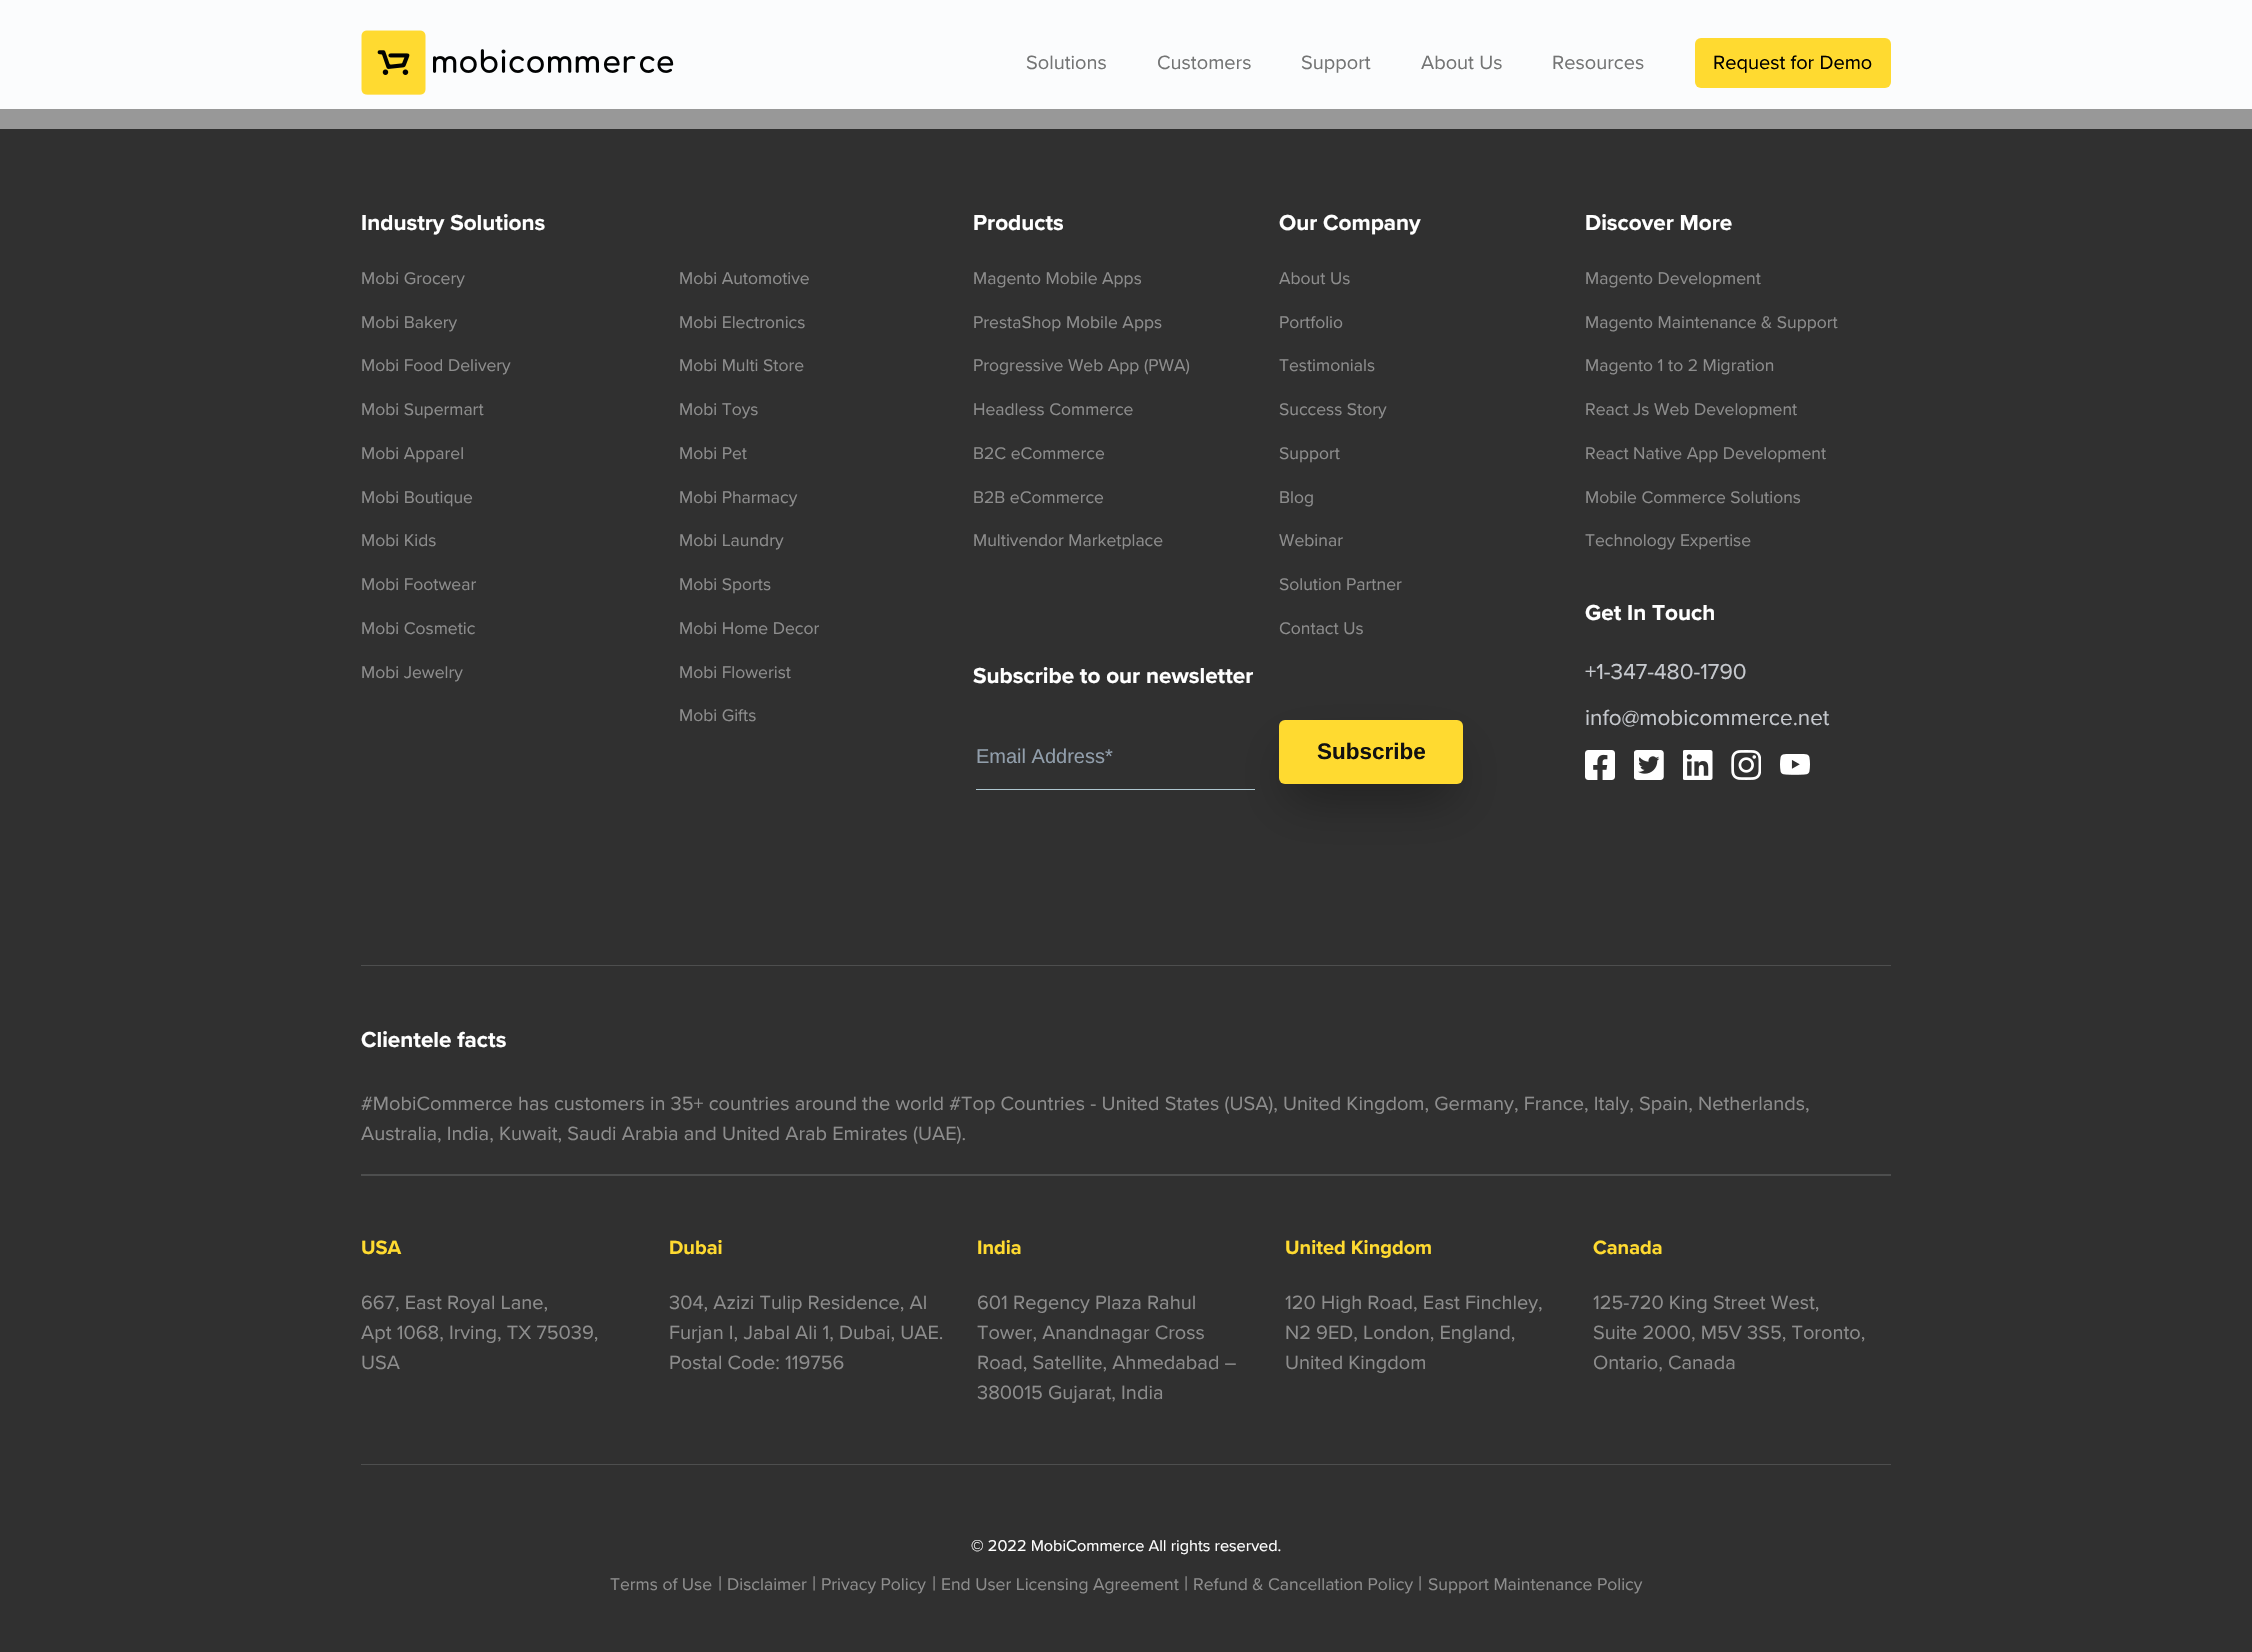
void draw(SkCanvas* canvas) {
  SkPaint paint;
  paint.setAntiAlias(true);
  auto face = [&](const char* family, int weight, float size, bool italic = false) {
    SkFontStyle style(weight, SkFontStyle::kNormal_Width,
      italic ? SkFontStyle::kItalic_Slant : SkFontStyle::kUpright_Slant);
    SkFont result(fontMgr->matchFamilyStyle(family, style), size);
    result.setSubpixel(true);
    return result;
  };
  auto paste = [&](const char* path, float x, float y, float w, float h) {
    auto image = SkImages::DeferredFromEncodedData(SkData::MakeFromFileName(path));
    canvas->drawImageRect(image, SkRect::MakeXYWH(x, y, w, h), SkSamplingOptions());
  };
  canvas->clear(0xfffbfcfd);
  paste("img/1.png", 361, 30, 313, 65);
  paint.setColor(0xffffda30);
  canvas->drawRoundRect(SkRect::MakeXYWH(1695, 38, 196, 50), 6, 6, paint);
  paint.setColor(0xff303030);
  canvas->drawRect(SkRect::MakeXYWH(0, 129, 2252, 1523), paint);
  paint.setColor(0xff989898);
  canvas->drawRect(SkRect::MakeXYWH(0, 109, 2252, 20), paint);
  paint.setColor(0x59000000);
  paint.setMaskFilter(SkMaskFilter::MakeBlur(kNormal_SkBlurStyle, 25));
  canvas->drawRect(SkRect::MakeXYWH(1288, 751, 166, 47), paint);
  paint.setMaskFilter(nullptr);
  paint.setColor(0xffaec6cf);
  canvas->drawRect(SkRect::MakeXYWH(976, 789, 279, 1), paint);
  paint.setColor(0xffffda30);
  canvas->drawRoundRect(SkRect::MakeXYWH(1279, 720, 184, 64), 6, 6, paint);
  paste("img/2.png", 1585, 750, 30, 30);
  paste("img/3.png", 1634, 750, 30, 30);
  paste("img/4.png", 1683, 750, 30, 30);
  paste("img/5.png", 1731, 750, 30, 30);
  paste("img/6.png", 1780, 754, 30, 21);
  {
    const struct { float x, y, w, h; SkColor color; } items[] = {
      {361, 965, 1530, 1, 0xff4d4e4e},
      {361, 1174, 1530, 2, 0xff4d4e4e},
      {361, 1464, 1530, 1, 0xff4d4e4e},
    };
    for (auto [x, y, w, h, color] : items) {
      paint.setColor(color);
      canvas->drawRect(SkRect::MakeXYWH(x, y, w, h), paint);
    }
  }
  auto f0 = face("Proxima Nova", 400, 20);
  paint.setColor(0xff737474);
  {
    const struct { const char* s; float x, y; } items[] = {
      {"Solutions", 1026, 69},
      {"Customers", 1157, 69},
      {"Support", 1301, 69},
      {"About Us", 1421, 69},
      {"Resources", 1552, 69},
    };
    for (auto [s, x, y] : items) {
      canvas->drawString(s, x, y, f0, paint);
    }
  }
  paint.setColor(0xff000000);
  canvas->drawString("Request for Demo", 1713, 69, f0, paint);
  auto f1 = face("Proxima Nova", 700, 22.5f);
  paint.setColor(0xffffffff);
  canvas->drawString("Industry Solutions", 361, 230, f1, paint);
  auto f2 = face("Proxima Nova", 400, 17.5f);
  paint.setColor(0xff8d8d8d);
  {
    const struct { const char* s; float x, y; } items[] = {
      {"Mobi Grocery", 361, 284},
      {"Mobi Bakery", 361, 328},
      {"Mobi Food Delivery", 361, 371},
      {"Mobi Supermart", 361, 415},
      {"Mobi Apparel", 361, 459},
      {"Mobi Boutique", 361, 503},
      {"Mobi Kids", 361, 546},
      {"Mobi Footwear", 361, 590},
      {"Mobi Cosmetic", 361, 634},
      {"Mobi Jewelry", 361, 678},
      {"Mobi Automotive", 679, 284},
      {"Mobi Electronics", 679, 328},
      {"Mobi Multi Store", 679, 371},
      {"Mobi Toys", 679, 415},
      {"Mobi Pet", 679, 459},
      {"Mobi Pharmacy", 679, 503},
      {"Mobi Laundry", 679, 546},
      {"Mobi Sports", 679, 590},
      {"Mobi Home Decor", 679, 634},
      {"Mobi Flowerist", 679, 678},
      {"Mobi Gifts", 679, 721},
    };
    for (auto [s, x, y] : items) {
      canvas->drawString(s, x, y, f2, paint);
    }
  }
  paint.setColor(0xffffffff);
  canvas->drawString("Products", 973, 230, f1, paint);
  paint.setColor(0xff8d8d8d);
  {
    const struct { const char* s; float x, y; } items[] = {
      {"Magento Mobile Apps", 973, 284},
      {"PrestaShop Mobile Apps", 973, 328},
      {"Progressive Web App (PWA)", 973, 371},
      {"Headless Commerce", 973, 415},
      {"B2C eCommerce", 973, 459},
      {"B2B eCommerce", 973, 503},
      {"Multivendor Marketplace", 973, 546},
    };
    for (auto [s, x, y] : items) {
      canvas->drawString(s, x, y, f2, paint);
    }
  }
  paint.setColor(0xffffffff);
  canvas->drawString("Our Company", 1279, 230, f1, paint);
  paint.setColor(0xff8d8d8d);
  {
    const struct { const char* s; float x, y; } items[] = {
      {"About Us", 1279, 284},
      {"Portfolio", 1279, 328},
      {"Testimonials", 1279, 371},
      {"Success Story", 1279, 415},
      {"Support", 1279, 459},
      {"Blog", 1279, 503},
      {"Webinar", 1279, 546},
      {"Solution Partner", 1279, 590},
      {"Contact Us", 1279, 634},
    };
    for (auto [s, x, y] : items) {
      canvas->drawString(s, x, y, f2, paint);
    }
  }
  paint.setColor(0xffffffff);
  canvas->drawString("Subscribe to our newsletter", 973, 683, f1, paint);
  auto f3 = face("Liberation Sans", 400, 20);
  paint.setColor(0xff919eab);
  canvas->drawString("Email Address*", 976, 763, f3, paint);
  auto f4 = face("Liberation Sans", 700, 22.5f);
  paint.setColor(0xff111111);
  canvas->drawString("Subscribe", 1317, 759, f4, paint);
  paint.setColor(0xffffffff);
  canvas->drawString("Discover More", 1585, 230, f1, paint);
  paint.setColor(0xff8d8d8d);
  {
    const struct { const char* s; float x, y; } items[] = {
      {"Magento Development", 1585, 284},
      {"Magento Maintenance & Support", 1585, 328},
      {"Magento 1 to 2 Migration", 1585, 371},
      {"React Js Web Development", 1585, 415},
      {"React Native App Development", 1585, 459},
      {"Mobile Commerce Solutions", 1585, 503},
      {"Technology Expertise", 1585, 546},
    };
    for (auto [s, x, y] : items) {
      canvas->drawString(s, x, y, f2, paint);
    }
  }
  paint.setColor(0xffffffff);
  canvas->drawString("Get In Touch", 1585, 620, f1, paint);
  auto f5 = face("Proxima Nova", 400, 22.5f);
  paint.setColor(0xffc6c9ce);
  canvas->drawString("+1-347-480-1790", 1585, 679, f5, paint);
  canvas->drawString("info@mobicommerce.net", 1585, 725, f5, paint);
  paint.setColor(0xffffffff);
  canvas->drawString("Clientele facts", 361, 1047, f1, paint);
  paint.setColor(0xff8d8d8d);
  canvas->drawString("#MobiCommerce has customers in 35+ countries around the world #Top Countries - United States (USA), United Kingdom, Germany, France, Italy, Spain, Netherlands,", 361, 1110, f0, paint);
  canvas->drawString("Australia, India, Kuwait, Saudi Arabia and United Arab Emirates (UAE).", 361, 1140, f0, paint);
  auto f6 = face("Proxima Nova", 700, 20);
  paint.setColor(0xffffda30);
  canvas->drawString("USA", 361, 1254, f6, paint);
  paint.setColor(0xff8d8d8d);
  {
    const struct { const char* s; float x, y; } items[] = {
      {"667, East Royal Lane,", 361, 1309},
      {"Apt 1068, Irving, TX 75039,", 361, 1339},
      {"USA", 361, 1369},
    };
    for (auto [s, x, y] : items) {
      canvas->drawString(s, x, y, f0, paint);
    }
  }
  paint.setColor(0xffffda30);
  canvas->drawString("Dubai", 669, 1254, f6, paint);
  paint.setColor(0xff8d8d8d);
  {
    const struct { const char* s; float x, y; } items[] = {
      {"304, Azizi Tulip Residence, Al", 669, 1309},
      {"Furjan I, Jabal Ali 1, Dubai, UAE.", 669, 1339},
      {"Postal Code: 119756", 669, 1369},
    };
    for (auto [s, x, y] : items) {
      canvas->drawString(s, x, y, f0, paint);
    }
  }
  paint.setColor(0xffffda30);
  canvas->drawString("India", 977, 1254, f6, paint);
  paint.setColor(0xff8d8d8d);
  {
    const struct { const char* s; float x, y; } items[] = {
      {"601 Regency Plaza Rahul", 977, 1309},
      {"Tower, Anandnagar Cross", 977, 1339},
      {"Road, Satellite, Ahmedabad –", 977, 1369},
      {"380015 Gujarat, India", 977, 1399},
    };
    for (auto [s, x, y] : items) {
      canvas->drawString(s, x, y, f0, paint);
    }
  }
  paint.setColor(0xffffda30);
  canvas->drawString("United Kingdom", 1285, 1254, f6, paint);
  paint.setColor(0xff8d8d8d);
  {
    const struct { const char* s; float x, y; } items[] = {
      {"120 High Road, East Finchley,", 1285, 1309},
      {"N2 9ED, London, England,", 1285, 1339},
      {"United Kingdom", 1285, 1369},
    };
    for (auto [s, x, y] : items) {
      canvas->drawString(s, x, y, f0, paint);
    }
  }
  paint.setColor(0xffffda30);
  canvas->drawString("Canada", 1593, 1254, f6, paint);
  paint.setColor(0xff8d8d8d);
  {
    const struct { const char* s; float x, y; } items[] = {
      {"125-720 King Street West,", 1593, 1309},
      {"Suite 2000, M5V 3S5, Toronto,", 1593, 1339},
      {"Ontario, Canada", 1593, 1369},
    };
    for (auto [s, x, y] : items) {
      canvas->drawString(s, x, y, f0, paint);
    }
  }
  auto f7 = face("Proxima Nova", 400, 16.25f);
  paint.setColor(0xffffffff);
  canvas->drawString("© 2022 MobiCommerce All rights reserved.", 971, 1551, f7, paint);
  paint.setColor(0xff8d8d8d);
  canvas->drawString("Terms of Use", 610, 1590, f2, paint);
  canvas->drawString("|", 718, 1590, f0, paint);
  canvas->drawString("Disclaimer", 727, 1590, f2, paint);
  canvas->drawString("|", 812, 1590, f0, paint);
  canvas->drawString("Privacy Policy", 821, 1590, f2, paint);
  canvas->drawString("|", 932, 1590, f0, paint);
  canvas->drawString("End User Licensing Agreement", 941, 1590, f2, paint);
  canvas->drawString("|", 1184, 1590, f0, paint);
  canvas->drawString("Refund & Cancellation Policy", 1193, 1590, f2, paint);
  canvas->drawString("|", 1418, 1590, f0, paint);
  canvas->drawString("Support Maintenance Policy", 1428, 1590, f2, paint);
}
